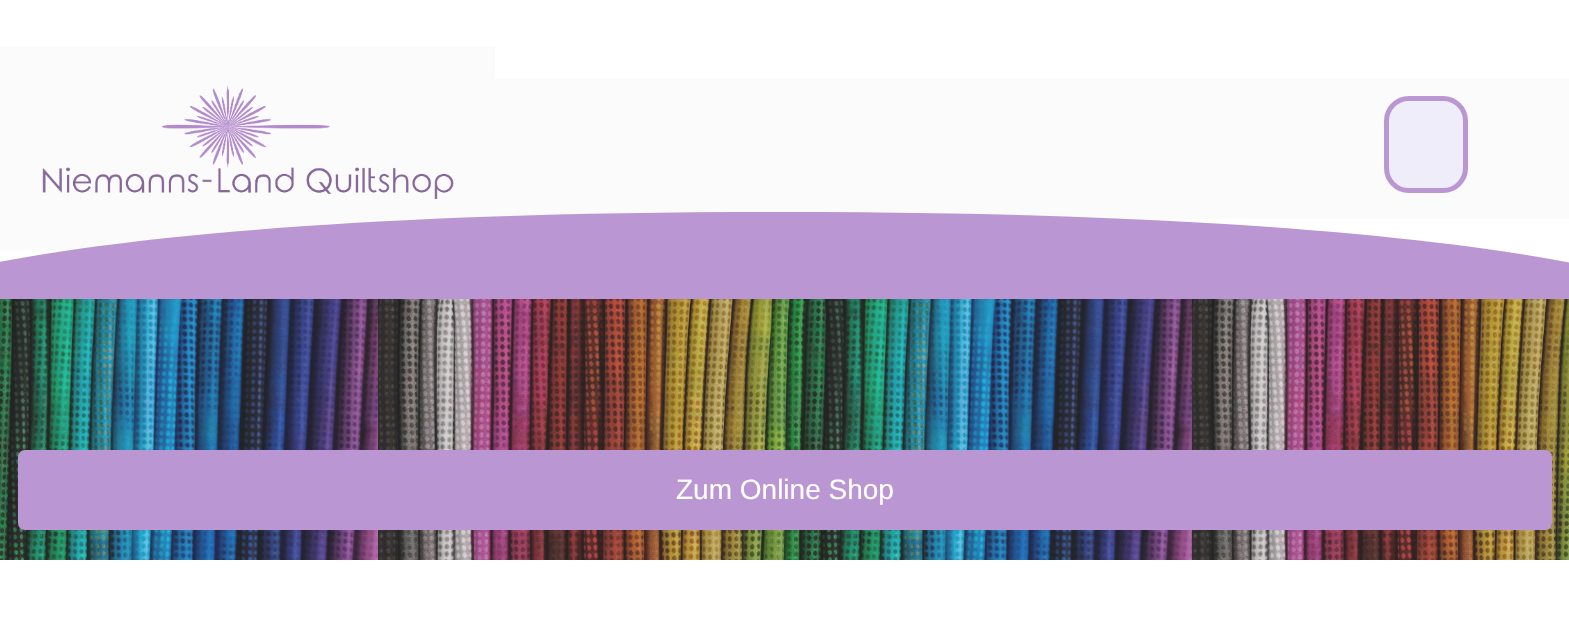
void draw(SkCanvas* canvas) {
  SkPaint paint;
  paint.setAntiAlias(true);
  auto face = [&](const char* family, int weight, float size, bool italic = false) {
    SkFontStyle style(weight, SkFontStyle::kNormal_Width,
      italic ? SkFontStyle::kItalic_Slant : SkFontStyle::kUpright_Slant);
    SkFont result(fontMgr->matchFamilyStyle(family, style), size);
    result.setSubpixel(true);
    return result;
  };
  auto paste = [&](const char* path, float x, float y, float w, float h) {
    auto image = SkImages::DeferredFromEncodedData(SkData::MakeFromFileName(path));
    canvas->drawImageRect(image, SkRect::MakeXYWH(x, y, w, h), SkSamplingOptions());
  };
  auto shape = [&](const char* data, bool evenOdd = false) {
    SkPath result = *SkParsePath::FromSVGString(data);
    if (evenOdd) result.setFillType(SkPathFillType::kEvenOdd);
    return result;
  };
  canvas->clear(0xffffffff);
  paint.setColor(0xfffbfbfb);
  canvas->drawRect(SkRect::MakeXYWH(0, 47, 495, 203), paint);
  paste("img/1.png", 42, 86, 412, 113);
  canvas->drawRect(SkRect::MakeXYWH(495, 79, 1074, 140), paint);
  paint.setColor(0xfff0edfb);
  canvas->drawRoundRect(SkRect::MakeXYWH(1386.5f, 98.5f, 79, 92), 22.5f, 22.5f, paint);
  paint.setStroke(true);
  paint.setStrokeWidth(5);
  paint.setColor(0xffba96d2);
  canvas->drawRoundRect(SkRect::MakeXYWH(1386.5f, 98.5f, 79, 92), 22.5f, 22.5f, paint);
  paint.setStroke(false);
  canvas->drawPath(shape("M-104 295V299H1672V295C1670 279 1447 212 784 212C121 211-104 279-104 295Z"), paint);
  paste("img/2.png", 0, 299, 1569, 261);
  canvas->drawRoundRect(SkRect::MakeXYWH(18, 450, 1534, 80), 7, 7, paint);
  auto f0 = face("Liberation Sans", 400, 28);
  paint.setColor(0xffffffff);
  canvas->drawString("Zum Online Shop", 676, 499, f0, paint);
}
